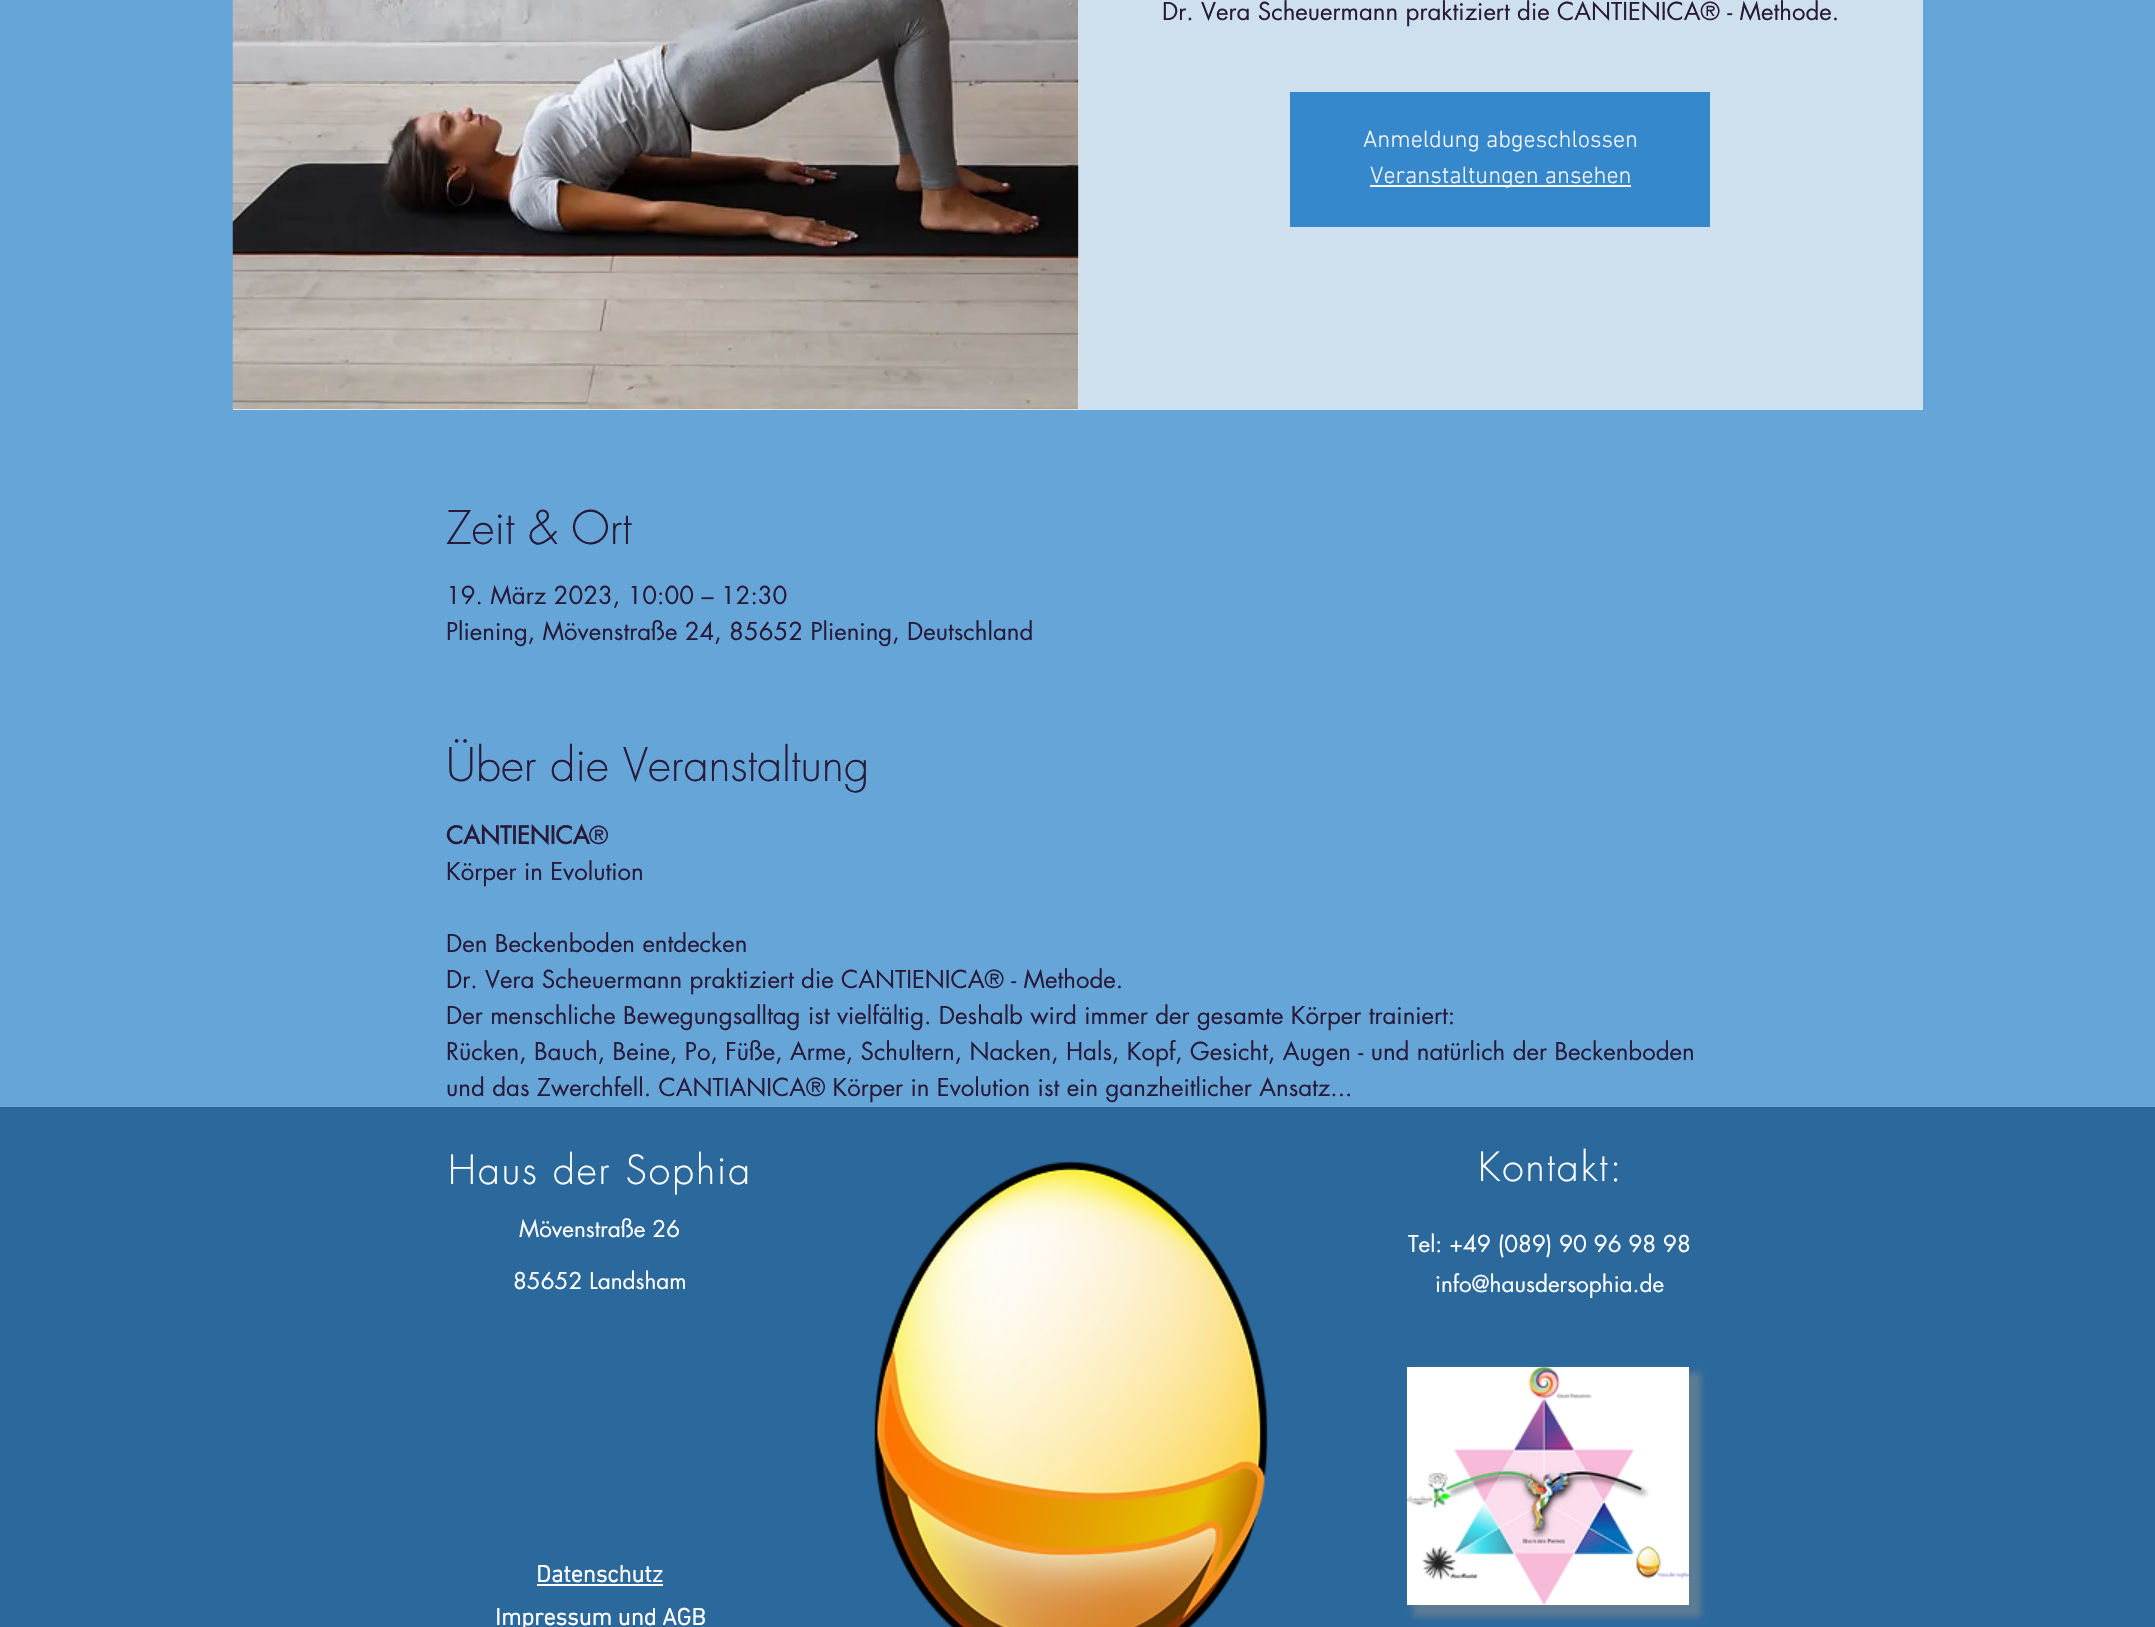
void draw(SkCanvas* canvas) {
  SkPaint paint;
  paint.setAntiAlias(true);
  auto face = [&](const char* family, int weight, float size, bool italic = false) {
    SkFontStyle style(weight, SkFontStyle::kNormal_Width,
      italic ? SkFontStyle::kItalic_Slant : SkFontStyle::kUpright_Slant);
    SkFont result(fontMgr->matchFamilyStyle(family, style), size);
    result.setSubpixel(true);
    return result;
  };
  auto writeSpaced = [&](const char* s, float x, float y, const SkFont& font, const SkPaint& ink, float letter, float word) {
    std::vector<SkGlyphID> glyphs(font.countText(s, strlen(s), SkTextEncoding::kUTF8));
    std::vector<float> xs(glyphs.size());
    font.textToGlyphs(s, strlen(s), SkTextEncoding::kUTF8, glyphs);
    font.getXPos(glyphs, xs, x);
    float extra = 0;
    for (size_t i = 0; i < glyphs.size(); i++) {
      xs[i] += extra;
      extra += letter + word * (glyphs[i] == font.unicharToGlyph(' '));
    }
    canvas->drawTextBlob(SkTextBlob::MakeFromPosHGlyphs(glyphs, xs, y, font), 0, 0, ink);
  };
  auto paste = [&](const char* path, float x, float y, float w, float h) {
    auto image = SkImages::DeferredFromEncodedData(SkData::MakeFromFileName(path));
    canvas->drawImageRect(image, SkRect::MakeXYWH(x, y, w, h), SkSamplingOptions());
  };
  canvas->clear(0xff66a5d8);
  paint.setColor(0xfff6f6f6);
  canvas->drawRect(SkRect::MakeXYWH(233, 0, 846, 410), paint);
  paste("img/1.png", 232, 0, 847, 410);
  {
    const struct { float x, y, w, h; SkColor color; } items[] = {
      {1079, 0, 844, 410, 0xffcedfee},
      {1290, 92, 420, 135, 0xff3588cc},
      {1370, 185, 261, 2, 0xfff6f6f6},
      {0, 1107, 2155, 520, 0xff2b689c},
      {537, 1584, 126, 2, 0xffffffff},
    };
    for (auto [x, y, w, h, color] : items) {
      paint.setColor(color);
      canvas->drawRect(SkRect::MakeXYWH(x, y, w, h), paint);
    }
  }
  paint.setColor(0x808d8d8d);
  paint.setMaskFilter(SkMaskFilter::MakeBlur(kNormal_SkBlurStyle, 3));
  canvas->drawRect(SkRect::MakeXYWH(1413, 1373, 288, 244), paint);
  paint.setMaskFilter(nullptr);
  paint.setColor(0xffffffff);
  canvas->drawRect(SkRect::MakeXYWH(1407, 1367, 282, 238), paint);
  paste("img/2.png", 1407, 1366, 282, 239);
  paste("img/3.png", 874, 1161, 394, 466);
  auto f0 = face("futura", 400, 24);
  paint.setColor(0xff281a39);
  canvas->drawString("Dr. Vera Scheuermann praktiziert die CANTIENICA® - Methode.", 1162, 20, f0, paint);
  auto f1 = face("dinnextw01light", 300, 24);
  paint.setColor(0xfff6f6f6);
  canvas->drawString("Anmeldung abgeschlossen", 1363, 147, f1, paint);
  canvas->drawString("Veranstaltungen ansehen", 1370, 183, f1, paint);
  auto f2 = face("futura", 300, 45);
  paint.setColor(0xff281a39);
  canvas->drawString("Zeit & Ort", 446, 544, f2, paint);
  canvas->drawString("19. März 2023, 10:00 – 12:30", 446, 604, f0, paint);
  canvas->drawString("Pliening, Mövenstraße 24, 85652 Pliening, Deutschland", 446, 640, f0, paint);
  canvas->drawString("Über die Veranstaltung", 446, 781, f2, paint);
  auto f3 = face("futura", 700, 24);
  canvas->drawString("CANTIENICA", 446, 844, f3, paint);
  {
    const struct { const char* s; float x, y; } items[] = {
      {"®", 589, 844},
      {"Körper in Evolution", 446, 880},
      {"Den Beckenboden entdecken", 446, 952},
      {"Dr. Vera Scheuermann praktiziert die CANTIENICA® - Methode.", 446, 988},
      {"Der menschliche Bewegungsalltag ist vielfältig. Deshalb wird immer der gesamte Körper trainiert:", 446, 1024},
      {"Rücken, Bauch, Beine, Po, Füße, Arme, Schultern, Nacken, Hals, Kopf, Gesicht, Augen - und natürlich der Beckenboden", 446, 1060},
      {"und das Zwerchfell. CANTIANICA® Körper in Evolution ist ein ganzheitlicher Ansatz...", 446, 1096},
    };
    for (auto [s, x, y] : items) {
      canvas->drawString(s, x, y, f0, paint);
    }
  }
  auto f4 = face("futura", 300, 39);
  paint.setColor(0xffffffff);
  writeSpaced("Haus der Sophia", 448, 1184, f4, paint, 2, 0);
  auto f5 = face("futura", 400, 22.5f);
  canvas->drawString("Mövenstraße 26", 519, 1237, f5, paint);
  canvas->drawString("85652 Landsham", 513, 1289, f5, paint);
  auto f6 = face("dinnextw01light", 700, 24);
  canvas->drawString("Datenschutz", 536, 1582, f6, paint);
  canvas->drawString("Impressum und AGB", 495, 1625, f6, paint);
  writeSpaced("Kontakt:", 1478, 1181, f4, paint, 2, 0);
  canvas->drawString("Tel: +49 (089) 90 96 98 98", 1408, 1252, f5, paint);
  canvas->drawString("info@hausdersophia.de", 1435, 1292, f5, paint);
}
